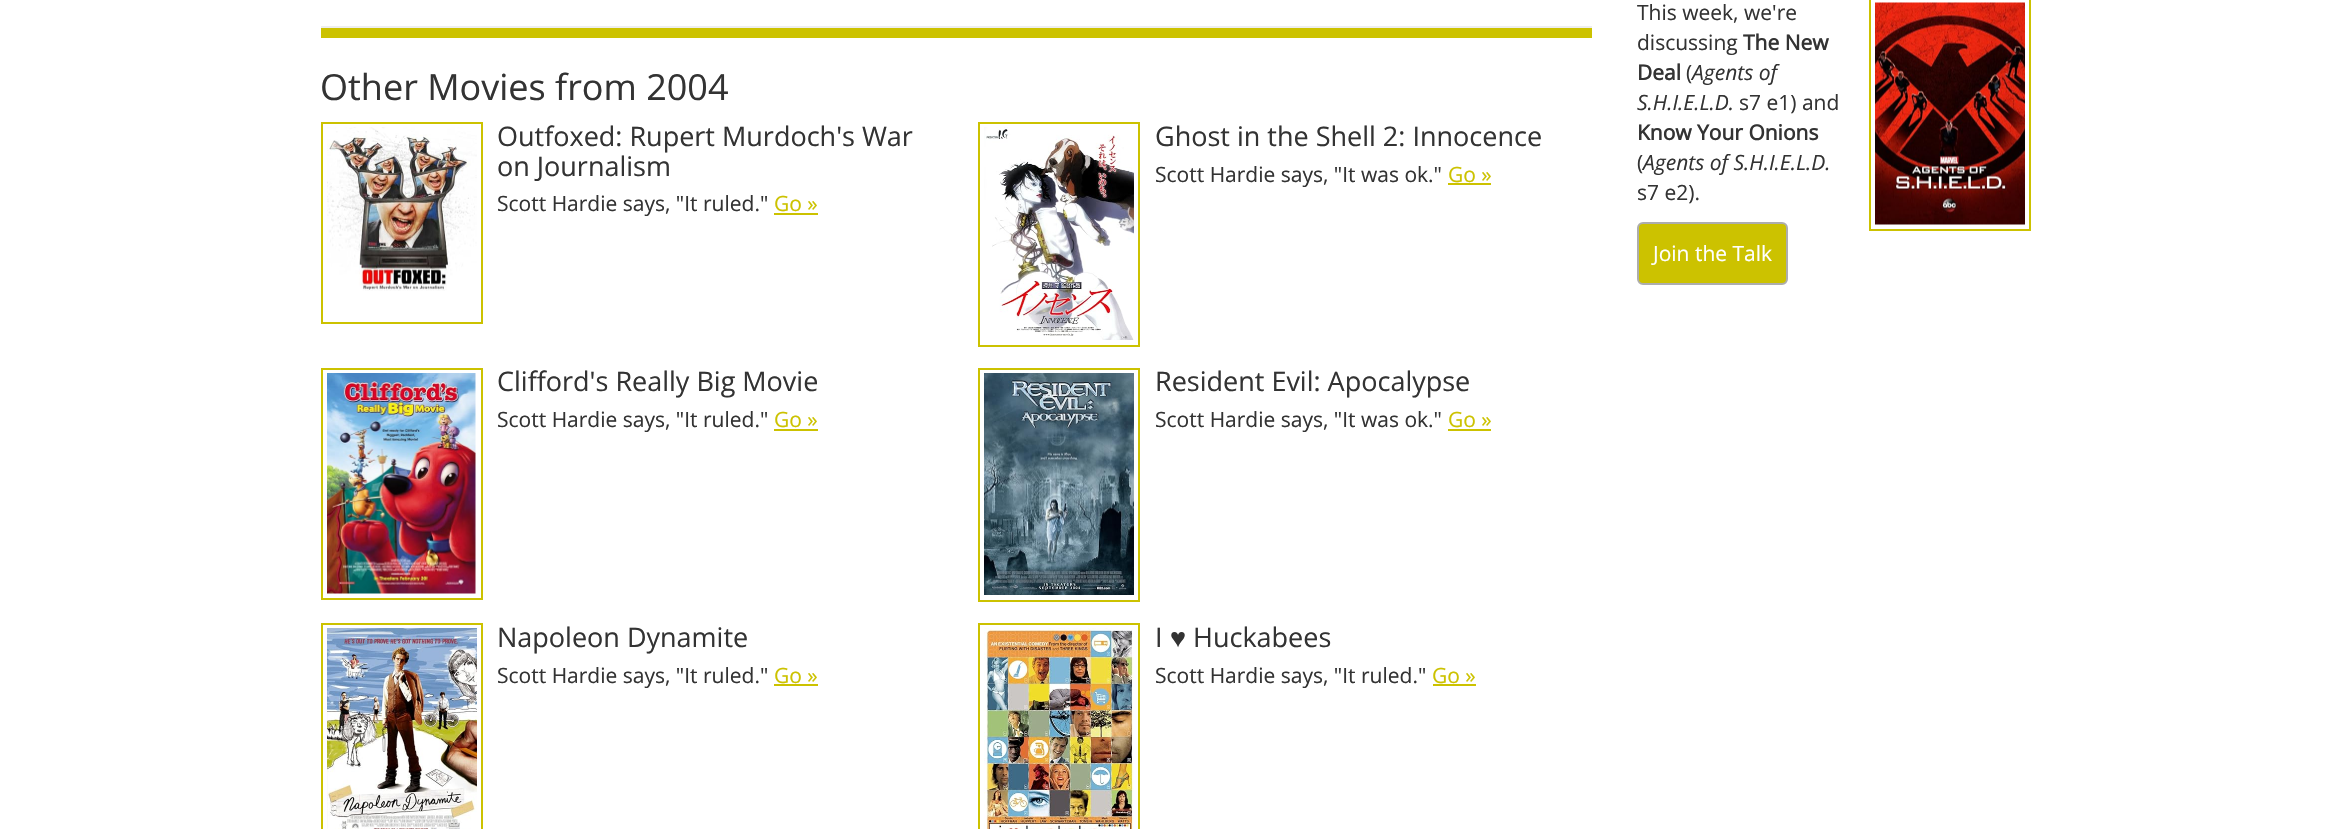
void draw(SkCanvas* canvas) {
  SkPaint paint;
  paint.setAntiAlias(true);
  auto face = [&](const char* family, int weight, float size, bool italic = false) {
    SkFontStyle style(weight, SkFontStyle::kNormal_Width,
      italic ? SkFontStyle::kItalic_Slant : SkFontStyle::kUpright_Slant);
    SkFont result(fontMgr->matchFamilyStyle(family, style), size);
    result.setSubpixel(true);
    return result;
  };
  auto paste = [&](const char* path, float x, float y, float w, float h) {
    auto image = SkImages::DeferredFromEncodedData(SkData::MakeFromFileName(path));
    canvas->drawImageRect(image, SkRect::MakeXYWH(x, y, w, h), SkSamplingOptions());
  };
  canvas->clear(0xffffffff);
  paint.setColor(0xffccc200);
  canvas->drawRect(SkRect::MakeXYWH(321, 28, 1271, 10), paint);
  paint.setColor(0xffeeeeee);
  canvas->drawRect(SkRect::MakeXYWH(321, 26, 1271, 2), paint);
  paint.setStroke(true);
  paint.setStrokeWidth(2);
  paint.setColor(0xffccc200);
  canvas->drawRect(SkRect::MakeXYWH(322, 123, 160, 200), paint);
  paste("img/1.png", 327, 127, 150, 164);
  paint.setStroke(false);
  canvas->drawRect(SkRect::MakeXYWH(774, 213, 44, 2), paint);
  paint.setStroke(true);
  canvas->drawRect(SkRect::MakeXYWH(979, 123, 160, 223), paint);
  paste("img/2.png", 984, 127, 150, 213);
  paint.setStroke(false);
  canvas->drawRect(SkRect::MakeXYWH(1448, 183, 43, 2), paint);
  paint.setStroke(true);
  canvas->drawRect(SkRect::MakeXYWH(322, 369, 160, 230), paint);
  paste("img/3.png", 327, 373, 149, 221);
  paint.setStroke(false);
  canvas->drawRect(SkRect::MakeXYWH(774, 429, 44, 2), paint);
  paint.setStroke(true);
  canvas->drawRect(SkRect::MakeXYWH(979, 369, 160, 232), paint);
  paste("img/4.png", 984, 373, 150, 222);
  paint.setStroke(false);
  canvas->drawRect(SkRect::MakeXYWH(1448, 429, 43, 2), paint);
  paint.setStroke(true);
  canvas->drawRect(SkRect::MakeXYWH(322, 624, 160, 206), paint);
  paste("img/5.png", 327, 628, 150, 201);
  paint.setStroke(false);
  canvas->drawRect(SkRect::MakeXYWH(774, 684, 44, 2), paint);
  paint.setStroke(true);
  canvas->drawRect(SkRect::MakeXYWH(979, 624, 160, 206), paint);
  paste("img/6.png", 984, 628, 150, 201);
  paint.setStroke(false);
  canvas->drawRect(SkRect::MakeXYWH(1433, 684, 43, 2), paint);
  paint.setStroke(true);
  canvas->drawRect(SkRect::MakeXYWH(1870, -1, 160, 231), paint);
  paste("img/7.png", 1875, 2, 150, 223);
  paint.setStroke(false);
  canvas->drawRoundRect(SkRect::MakeXYWH(1638, 223, 149, 61), 5, 5, paint);
  paint.setStroke(true);
  paint.setColor(0xffadadad);
  canvas->drawRoundRect(SkRect::MakeXYWH(1638, 223, 149, 61), 5, 5, paint);
  auto f0 = face("Open Sans", 400, 36);
  paint.setStroke(false);
  paint.setColor(0xff333333);
  canvas->drawString("Other Movies from 2004", 320, 100, f0, paint);
  auto f1 = face("Open Sans", 400, 27);
  canvas->drawString("Outfoxed: Rupert Murdoch's War", 497, 146, f1, paint);
  canvas->drawString("on Journalism", 497, 176, f1, paint);
  auto f2 = face("Open Sans", 400, 21);
  canvas->drawString("Scott Hardie says, \"It ruled.\"", 497, 211, f2, paint);
  paint.setColor(0xffccc200);
  canvas->drawString("Go »", 774, 211, f2, paint);
  paint.setColor(0xff333333);
  canvas->drawString("Ghost in the Shell 2: Innocence", 1155, 146, f1, paint);
  canvas->drawString("Scott Hardie says, \"It was ok.\"", 1155, 182, f2, paint);
  paint.setColor(0xffccc200);
  canvas->drawString("Go »", 1448, 182, f2, paint);
  paint.setColor(0xff333333);
  canvas->drawString("Clifford's Really Big Movie", 497, 391, f1, paint);
  canvas->drawString("Scott Hardie says, \"It ruled.\"", 497, 427, f2, paint);
  paint.setColor(0xffccc200);
  canvas->drawString("Go »", 774, 427, f2, paint);
  paint.setColor(0xff333333);
  canvas->drawString("Resident Evil: Apocalypse", 1155, 391, f1, paint);
  canvas->drawString("Scott Hardie says, \"It was ok.\"", 1155, 427, f2, paint);
  paint.setColor(0xffccc200);
  canvas->drawString("Go »", 1448, 427, f2, paint);
  paint.setColor(0xff333333);
  canvas->drawString("Napoleon Dynamite", 497, 647, f1, paint);
  canvas->drawString("Scott Hardie says, \"It ruled.\"", 497, 683, f2, paint);
  paint.setColor(0xffccc200);
  canvas->drawString("Go »", 774, 683, f2, paint);
  paint.setColor(0xff333333);
  canvas->drawString("I", 1155, 647, f1, paint);
  auto f3 = face("Liberation Sans", 400, 27);
  canvas->drawString("♥", 1170, 647, f3, paint);
  canvas->drawString("Huckabees", 1193, 647, f1, paint);
  canvas->drawString("Scott Hardie says, \"It ruled.\"", 1155, 683, f2, paint);
  paint.setColor(0xffccc200);
  canvas->drawString("Go »", 1432, 683, f2, paint);
  paint.setColor(0xff333333);
  canvas->drawString("This week, we're", 1637, 20, f2, paint);
  canvas->drawString("discussing", 1637, 50, f2, paint);
  auto f4 = face("Open Sans", 700, 21);
  canvas->drawString("The New", 1743, 50, f4, paint);
  canvas->drawString("Deal", 1637, 80, f4, paint);
  canvas->drawString("(", 1686, 80, f2, paint);
  auto f5 = face("Open Sans", 400, 21, true);
  canvas->drawString("Agents of", 1692, 80, f5, paint);
  canvas->drawString("S.H.I.E.L.D.", 1637, 110, f5, paint);
  canvas->drawString("s7 e1) and", 1739, 110, f2, paint);
  canvas->drawString("Know Your Onions", 1637, 140, f4, paint);
  canvas->drawString("(", 1637, 170, f2, paint);
  canvas->drawString("Agents of S.H.I.E.L.D.", 1643, 170, f5, paint);
  canvas->drawString("s7 e2).", 1637, 200, f2, paint);
  paint.setColor(0xffffffff);
  canvas->drawString("Join the Talk", 1653, 261, f2, paint);
}
